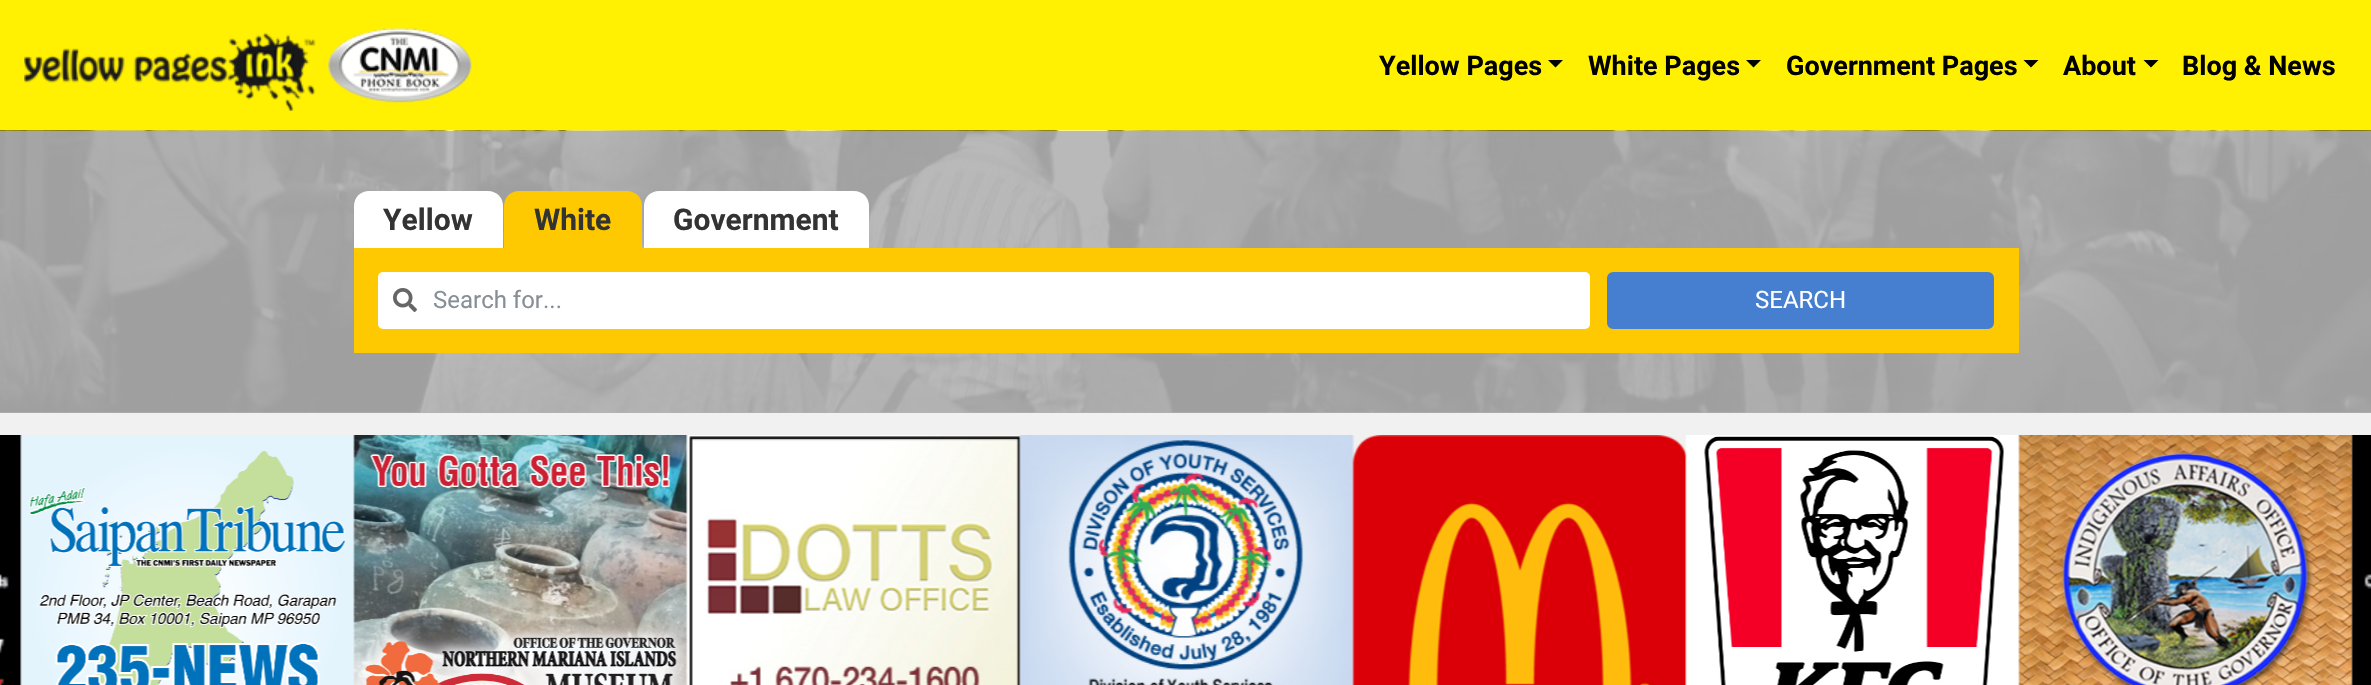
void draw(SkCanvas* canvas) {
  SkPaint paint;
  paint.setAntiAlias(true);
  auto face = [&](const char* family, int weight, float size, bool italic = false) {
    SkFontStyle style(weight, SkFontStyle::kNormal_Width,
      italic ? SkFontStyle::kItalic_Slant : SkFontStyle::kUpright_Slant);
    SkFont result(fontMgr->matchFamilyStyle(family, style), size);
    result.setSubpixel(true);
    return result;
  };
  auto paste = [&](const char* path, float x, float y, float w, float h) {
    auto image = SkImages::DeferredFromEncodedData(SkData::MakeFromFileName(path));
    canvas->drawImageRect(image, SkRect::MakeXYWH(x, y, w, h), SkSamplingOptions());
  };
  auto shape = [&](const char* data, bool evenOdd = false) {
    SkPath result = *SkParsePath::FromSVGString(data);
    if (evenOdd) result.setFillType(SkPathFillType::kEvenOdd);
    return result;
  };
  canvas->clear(0xfff1f1f1);
  paint.setColor(0xfffff101);
  canvas->drawRect(SkRect::MakeXYWH(0, 0, 2371, 131), paint);
  paste("img/1.png", 24, 26, 450, 85);
  paint.setColor(0xff000000);
  canvas->drawPath(shape("M1548 60H1563L1555.5 67.5Z"), paint);
  canvas->drawPath(shape("M1746 60H1761L1753.5 67.5Z"), paint);
  canvas->drawPath(shape("M2023.5 60H2038.5L2031 67.5Z"), paint);
  canvas->drawPath(shape("M2143.5 60H2158.5L2151 67.5Z"), paint);
  paint.setColor(0xffb5b5b5);
  canvas->drawRect(SkRect::MakeXYWH(0, 412, 2371, 1), paint);
  paste("img/2.png", 0, 130, 2371, 283);
  paint.setColor(0xffffffff);
  canvas->drawPath(shape("M369 191H488C496.5 191 503 197.5 503 206V248H354V206C354 197.5 360.5 191 369 191Z"), paint);
  paint.setColor(0xfffec901);
  canvas->drawPath(shape("M519 191H627C635.5 191 642 197.5 642 206V248H504V206C504 197.5 510.5 191 519 191Z"), paint);
  paint.setColor(0xffffffff);
  canvas->drawPath(shape("M659 191H854C862.5 191 869 197.5 869 206V248H644V206C644 197.5 650.5 191 659 191Z"), paint);
  paint.setColor(0xfffec901);
  canvas->drawRect(SkRect::MakeXYWH(354, 248, 1665, 105), paint);
  paint.setColor(0xffffffff);
  canvas->drawRoundRect(SkRect::MakeXYWH(378, 272, 1212, 57), 5, 5, paint);
  paste("img/3.png", 393, 288, 24, 24);
  paint.setColor(0xff467fcf);
  canvas->drawRoundRect(SkRect::MakeXYWH(1608, 273, 385, 55), 5, 5, paint);
  paint.setStroke(true);
  paint.setStrokeWidth(2);
  canvas->drawRoundRect(SkRect::MakeXYWH(1608, 273, 385, 55), 5, 5, paint);
  paste("img/4.png", 0, 435, 22, 250);
  paste("img/5.png", 20, 435, 335, 250);
  paste("img/6.png", 353, 435, 335, 250);
  paste("img/7.png", 686, 435, 335, 250);
  paste("img/8.png", 1019, 435, 335, 250);
  paste("img/9.png", 1352, 435, 335, 250);
  paste("img/10.png", 1685, 435, 335, 250);
  paste("img/11.png", 2018, 435, 335, 250);
  paste("img/12.png", 2351, 435, 20, 250);
  auto f0 = face("Roboto", 700, 27);
  paint.setStroke(false);
  paint.setColor(0xff000000);
  {
    const struct { const char* s; float x, y; } items[] = {
      {"Yellow Pages", 1379, 75},
      {"White Pages", 1588, 75},
      {"Government Pages", 1786, 75},
      {"About", 2063, 75},
      {"Blog & News", 2182, 75},
    };
    for (auto [s, x, y] : items) {
      canvas->drawString(s, x, y, f0, paint);
    }
  }
  auto f1 = face("Roboto", 700, 30);
  paint.setColor(0xff333333);
  {
    const struct { const char* s; float x, y; } items[] = {
      {"Yellow", 383, 230},
      {"White", 534, 230},
      {"Government", 673, 230},
    };
    for (auto [s, x, y] : items) {
      canvas->drawString(s, x, y, f1, paint);
    }
  }
  auto f2 = face("Roboto", 400, 24);
  paint.setColor(0xff868e96);
  canvas->drawString("Search for...", 433, 308, f2, paint);
  paint.setColor(0xffffffff);
  canvas->drawString("SEARCH", 1755, 308, f2, paint);
}
